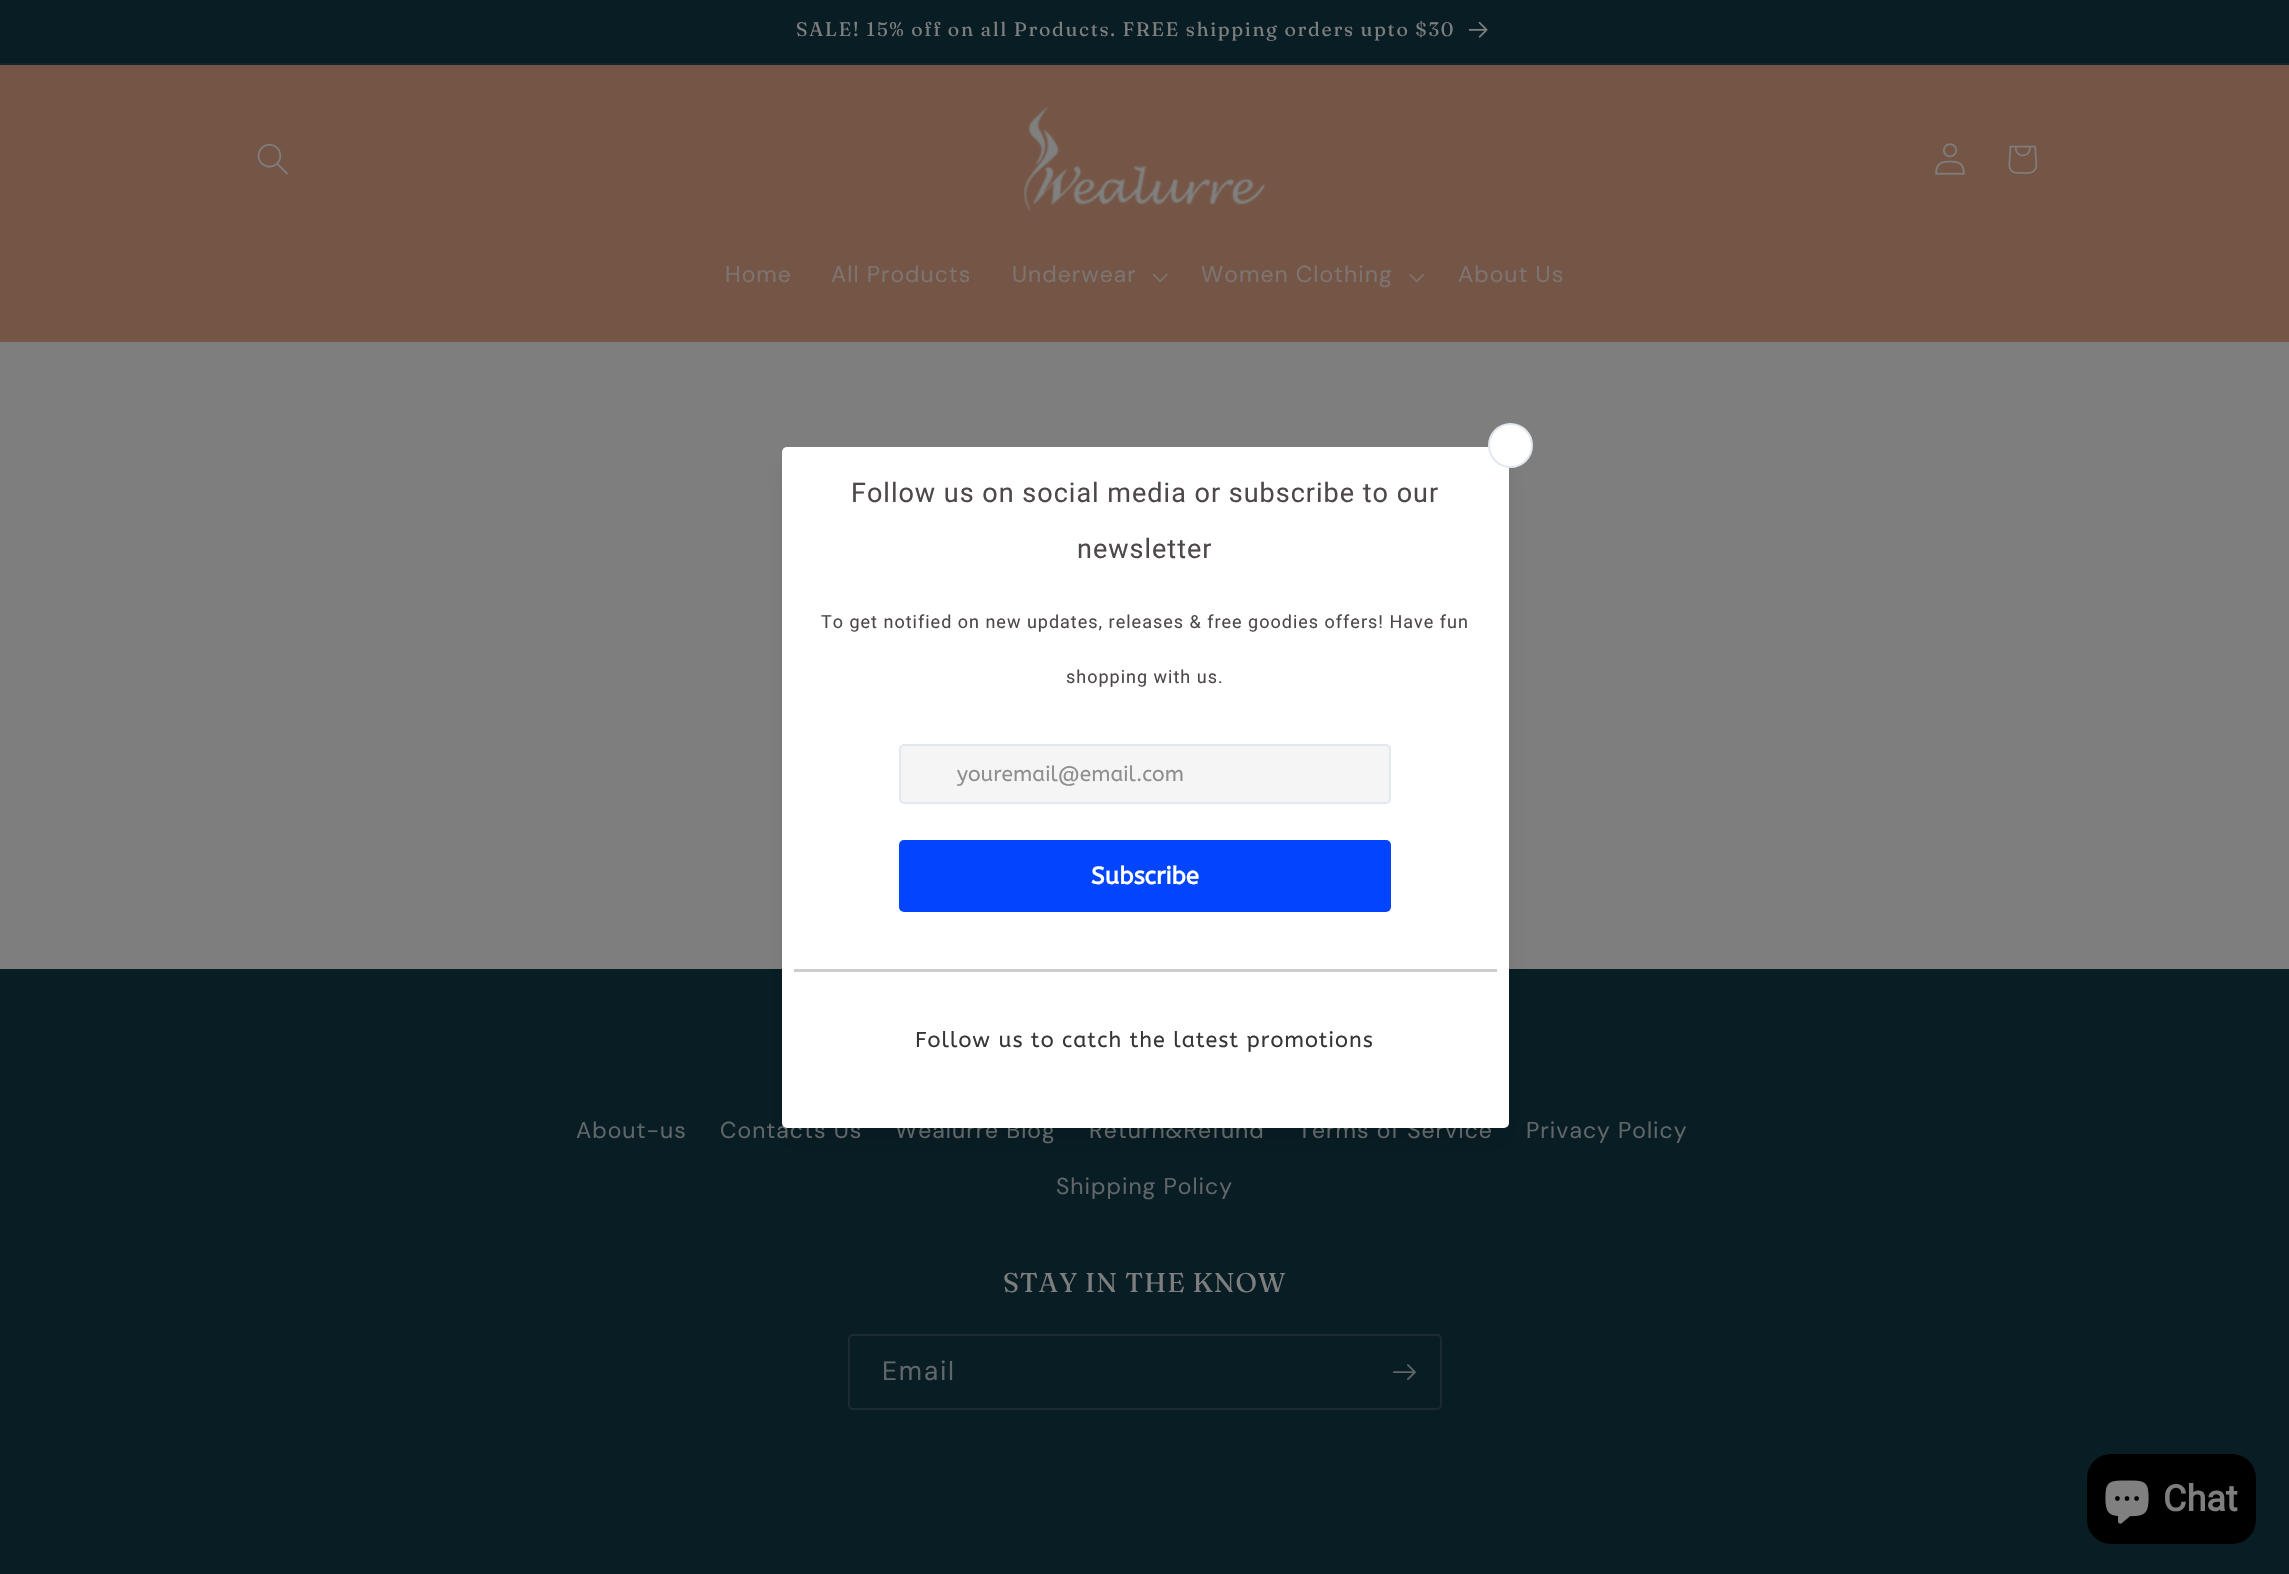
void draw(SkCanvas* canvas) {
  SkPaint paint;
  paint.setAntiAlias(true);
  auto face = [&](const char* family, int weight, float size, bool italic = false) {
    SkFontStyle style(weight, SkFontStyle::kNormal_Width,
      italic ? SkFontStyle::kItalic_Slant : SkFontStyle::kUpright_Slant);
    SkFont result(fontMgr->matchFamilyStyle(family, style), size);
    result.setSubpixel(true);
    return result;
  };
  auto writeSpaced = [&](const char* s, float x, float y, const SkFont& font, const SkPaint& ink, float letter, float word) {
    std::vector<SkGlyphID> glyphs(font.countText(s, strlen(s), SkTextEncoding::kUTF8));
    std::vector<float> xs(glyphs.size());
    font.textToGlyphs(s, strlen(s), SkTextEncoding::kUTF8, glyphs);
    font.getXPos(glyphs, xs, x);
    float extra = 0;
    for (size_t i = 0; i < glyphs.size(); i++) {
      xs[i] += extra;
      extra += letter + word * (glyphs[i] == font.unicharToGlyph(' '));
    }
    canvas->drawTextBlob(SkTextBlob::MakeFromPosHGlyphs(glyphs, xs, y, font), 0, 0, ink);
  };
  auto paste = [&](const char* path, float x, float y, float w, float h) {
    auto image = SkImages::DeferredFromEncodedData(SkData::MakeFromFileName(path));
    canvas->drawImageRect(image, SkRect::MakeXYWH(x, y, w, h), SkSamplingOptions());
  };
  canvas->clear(0xff7e7e7e);
  paint.setColor(0xff081d24);
  canvas->drawRect(SkRect::MakeXYWH(0, 0, 2289, 63), paint);
  paint.setColor(0xff12252b);
  canvas->drawRect(SkRect::MakeXYWH(0, 63, 2289, 2), paint);
  paste("img/1.png", 1469, 21, 19, 17);
  paint.setColor(0xff755646);
  canvas->drawRect(SkRect::MakeXYWH(0, 65, 2289, 276), paint);
  paint.setColor(0xff76594a);
  canvas->drawRect(SkRect::MakeXYWH(0, 341, 2289, 1), paint);
  paste("img/2.png", 257, 143, 31, 32);
  paste("img/3.png", 1024, 106, 241, 106);
  paste("img/4.png", 1935, 143, 30, 32);
  paste("img/5.png", 2008, 145, 30, 29);
  paste("img/6.png", 1152, 273, 16, 9);
  paste("img/7.png", 1409, 273, 16, 9);
  paint.setColor(0xff081d24);
  canvas->drawRect(SkRect::MakeXYWH(0, 969, 2289, 605), paint);
  paint.setColor(0x1a000000);
  paint.setMaskFilter(SkMaskFilter::MakeBlur(kNormal_SkBlurStyle, 11));
  canvas->drawRoundRect(SkRect::MakeXYWH(786, 467, 719, 672), 1, 1, paint);
  paint.setMaskFilter(nullptr);
  canvas->save();
  canvas->clipRect(SkRect::MakeXYWH(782, 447, 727, 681));
  paint.setColor(0x1f000000);
  paint.setMaskFilter(SkMaskFilter::MakeBlur(kNormal_SkBlurStyle, 15));
  canvas->drawRoundRect(SkRect::MakeXYWH(786, 452, 719, 672), 1, 1, paint);
  paint.setMaskFilter(nullptr);
  canvas->restore();
  paint.setStroke(true);
  paint.setStrokeWidth(2);
  paint.setColor(0xff1a2b32);
  canvas->drawRoundRect(SkRect::MakeXYWH(849, 1335, 592, 74), 4, 4, paint);
  paste("img/8.png", 1393, 1364, 23, 16);
  paint.setStroke(false);
  paint.setColor(0xff000000);
  canvas->drawRoundRect(SkRect::MakeXYWH(2087, 1454, 169, 90), 24, 24, paint);
  paste("img/9.png", 2105, 1480, 44, 44);
  auto f0 = face("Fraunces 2", 400, 19.5f);
  paint.setColor(0xff7e7e7e);
  writeSpaced("SALE! 15% off on all Products. FREE shipping orders upto $30", 796, 36, f0, paint, 1.65f, -0.25f);
  auto f1 = face("DM Sans", 400, 23);
  paint.setColor(0xff7c7470);
  {
    const struct { const char* s; float x, y; } items[] = {
      {"Home", 725, 282},
      {"All Products", 831, 282},
      {"Underwear", 1012, 282},
      {"Women Clothing", 1201, 282},
      {"About Us", 1458, 282},
    };
    for (auto [s, x, y] : items) {
      writeSpaced(s, x, y, f1, paint, 1, 0);
    }
  }
  paint.setColor(0xff616668);
  {
    const struct { const char* s; float x, y; } items[] = {
      {"About-us", 576, 1138},
      {"Contacts Us", 720, 1138},
      {"Wealurre Blog", 895, 1138},
      {"Return&Refund", 1089, 1138},
      {"Terms of Service", 1298, 1138},
    };
    for (auto [s, x, y] : items) {
      writeSpaced(s, x, y, f1, paint, 1, 0);
    }
  }
  paint.setColor(0xffffffff);
  canvas->drawRoundRect(SkRect::MakeXYWH(782, 447, 727, 681), 5, 5, paint);
  canvas->drawCircle(1510.5f, 445.5f, 21.5f, paint);
  paint.setStroke(true);
  paint.setColor(0xffe2e8f0);
  canvas->drawCircle(1510.5f, 445.5f, 21.5f, paint);
  paint.setStroke(false);
  paint.setColor(0xffcdcdcd);
  canvas->drawRect(SkRect::MakeXYWH(794, 969, 703, 3), paint);
  paint.setColor(0xfff5f5f5);
  canvas->drawRoundRect(SkRect::MakeXYWH(900, 745, 490, 58), 4, 4, paint);
  paint.setStroke(true);
  paint.setColor(0xffe2e8f0);
  canvas->drawRoundRect(SkRect::MakeXYWH(900, 745, 490, 58), 4, 4, paint);
  auto f2 = face("ABeeZee", 400, 21);
  paint.setStroke(false);
  paint.setColor(0xff8e8e8e);
  canvas->drawString("youremail@email.com", 957, 781, f2, paint);
  auto f3 = face("ABeeZee", 400, 21.6f);
  paint.setColor(0xff363636);
  writeSpaced("Follow us to catch the latest promotions", 915, 1047, f3, paint, 1, 0);
  paint.setColor(0xff0345fc);
  canvas->drawRoundRect(SkRect::MakeXYWH(899, 840, 492, 72), 5, 5, paint);
  auto f4 = face("ABeeZee", 700, 24);
  paint.setColor(0xffffffff);
  canvas->drawString("Subscribe", 1091, 884, f4, paint);
  auto f5 = face("Roboto", 400, 18);
  paint.setColor(0xff4f4848);
  writeSpaced("shopping with us.", 1066, 683, f5, paint, 1, 0);
  writeSpaced("To get notified on new updates, releases & free goodies offers! Have fun", 821, 628, f5, paint, 1, 0);
  auto f6 = face("Roboto", 400, 27);
  writeSpaced("newsletter", 1077, 558, f6, paint, 1, 0);
  writeSpaced("Follow us on social media or subscribe to our", 851, 502, f6, paint, 1, 0);
  paint.setColor(0xff616668);
  writeSpaced("Privacy Policy", 1526, 1138, f1, paint, 1, 0);
  writeSpaced("Shipping Policy", 1056, 1194, f1, paint, 1, 0);
  auto f7 = face("Fraunces", 400, 27);
  paint.setColor(0xff7e7e7e);
  writeSpaced("STAY IN THE KNOW", 1003, 1292, f7, paint, 0.9f, 0);
  auto f8 = face("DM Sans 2", 400, 26.5f);
  paint.setColor(0xff616668);
  writeSpaced("Email", 882, 1380, f8, paint, 1.65f, 0);
  auto f9 = face("Roboto", 700, 36);
  paint.setColor(0xff7e7e7e);
  canvas->drawString("Chat", 2163, 1511, f9, paint);
}
